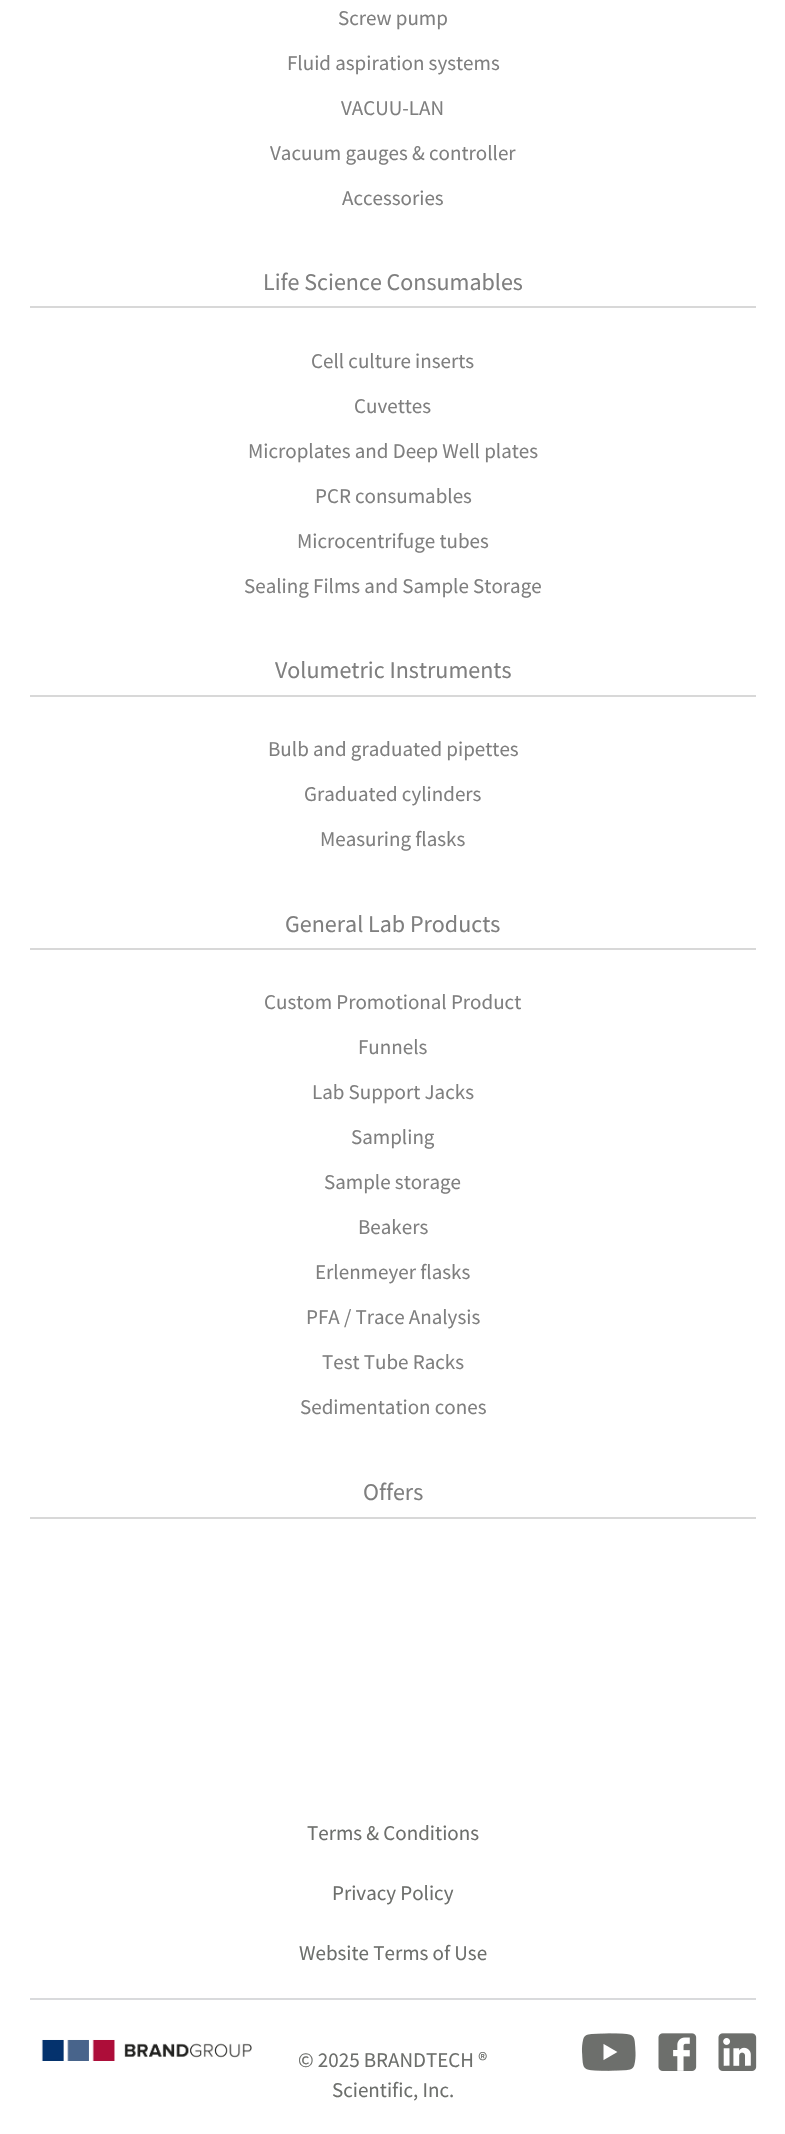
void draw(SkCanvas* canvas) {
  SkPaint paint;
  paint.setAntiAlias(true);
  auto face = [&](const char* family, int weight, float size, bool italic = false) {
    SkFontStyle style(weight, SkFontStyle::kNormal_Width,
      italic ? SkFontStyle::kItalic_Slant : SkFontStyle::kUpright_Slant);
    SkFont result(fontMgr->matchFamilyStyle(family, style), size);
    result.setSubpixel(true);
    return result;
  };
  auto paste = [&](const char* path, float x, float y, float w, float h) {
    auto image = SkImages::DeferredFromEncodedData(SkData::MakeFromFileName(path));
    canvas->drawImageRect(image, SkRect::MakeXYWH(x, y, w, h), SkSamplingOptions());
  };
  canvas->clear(0xffffffff);
  {
    const struct { float x, y, w, h; SkColor color; } items[] = {
      {30, 306, 726, 2, 0xffd8d8d8},
      {30, 695, 726, 2, 0xffd8d8d8},
      {30, 948, 726, 2, 0xffd8d8d8},
      {30, 1517, 726, 2, 0xffd8d8d8},
      {30, 1998, 726, 2, 0xffd9dadc},
    };
    for (auto [x, y, w, h, color] : items) {
      paint.setColor(color);
      canvas->drawRect(SkRect::MakeXYWH(x, y, w, h), paint);
    }
  }
  paste("img/1.png", 41, 2039, 211, 22);
  paste("img/2.png", 581, 2033, 55, 38);
  paste("img/3.png", 658, 2033, 39, 38);
  paste("img/4.png", 718, 2033, 39, 38);
  auto f0 = face("Source Sans Pro", 400, 21);
  paint.setColor(0xff7f7f7f);
  {
    const struct { const char* s; float x, y; } items[] = {
      {"Screw pump", 338, 25},
      {"Fluid aspiration systems", 287, 70},
      {"VACUU-LAN", 341, 115},
      {"Vacuum gauges & controller", 270, 160},
      {"Accessories", 342, 205},
    };
    for (auto [s, x, y] : items) {
      canvas->drawString(s, x, y, f0, paint);
    }
  }
  auto f1 = face("Source Sans Pro", 400, 24);
  canvas->drawString("Life Science Consumables", 263, 290, f1, paint);
  {
    const struct { const char* s; float x, y; } items[] = {
      {"Cell culture inserts", 311, 368},
      {"Cuvettes", 354, 413},
      {"Microplates and Deep Well plates", 248, 458},
      {"PCR consumables", 315, 503},
      {"Microcentrifuge tubes", 297, 548},
      {"Sealing Films and Sample Storage", 244, 593},
    };
    for (auto [s, x, y] : items) {
      canvas->drawString(s, x, y, f0, paint);
    }
  }
  canvas->drawString("Volumetric Instruments", 275, 678, f1, paint);
  {
    const struct { const char* s; float x, y; } items[] = {
      {"Bulb and graduated pipettes", 268, 756},
      {"Graduated cylinders", 304, 801},
      {"Measuring flasks", 320, 846},
    };
    for (auto [s, x, y] : items) {
      canvas->drawString(s, x, y, f0, paint);
    }
  }
  canvas->drawString("General Lab Products", 285, 932, f1, paint);
  {
    const struct { const char* s; float x, y; } items[] = {
      {"Custom Promotional Product", 264, 1009},
      {"Funnels", 358, 1054},
      {"Lab Support Jacks", 312, 1099},
      {"Sampling", 351, 1144},
      {"Sample storage", 324, 1189},
      {"Beakers", 358, 1234},
      {"Erlenmeyer flasks", 315, 1279},
      {"PFA / Trace Analysis", 306, 1324},
      {"Test Tube Racks", 322, 1369},
      {"Sedimentation cones", 300, 1414},
    };
    for (auto [s, x, y] : items) {
      canvas->drawString(s, x, y, f0, paint);
    }
  }
  canvas->drawString("Offers", 363, 1500, f1, paint);
  paint.setColor(0xff6d6f6c);
  {
    const struct { const char* s; float x, y; } items[] = {
      {"Terms & Conditions", 307, 1840},
      {"Privacy Policy", 332, 1900},
      {"Website Terms of Use", 299, 1960},
      {"© 2025 BRANDTECH ®", 298, 2067},
      {"Scientific, Inc.", 332, 2097},
    };
    for (auto [s, x, y] : items) {
      canvas->drawString(s, x, y, f0, paint);
    }
  }
}
